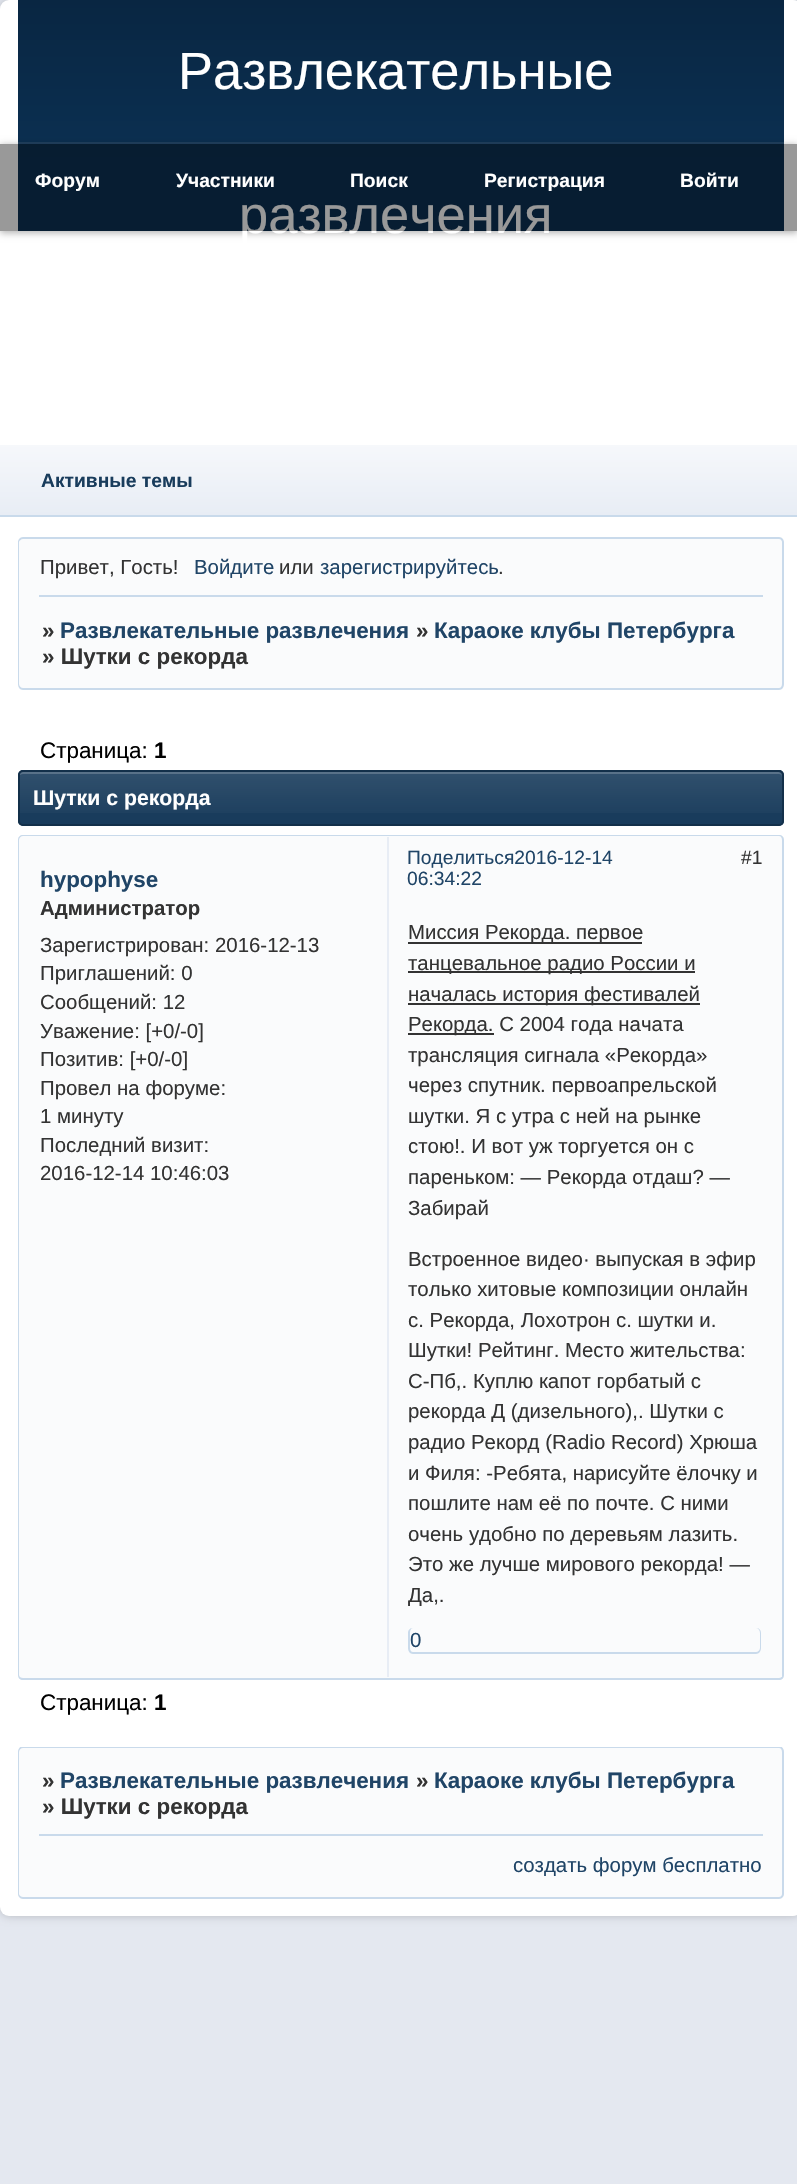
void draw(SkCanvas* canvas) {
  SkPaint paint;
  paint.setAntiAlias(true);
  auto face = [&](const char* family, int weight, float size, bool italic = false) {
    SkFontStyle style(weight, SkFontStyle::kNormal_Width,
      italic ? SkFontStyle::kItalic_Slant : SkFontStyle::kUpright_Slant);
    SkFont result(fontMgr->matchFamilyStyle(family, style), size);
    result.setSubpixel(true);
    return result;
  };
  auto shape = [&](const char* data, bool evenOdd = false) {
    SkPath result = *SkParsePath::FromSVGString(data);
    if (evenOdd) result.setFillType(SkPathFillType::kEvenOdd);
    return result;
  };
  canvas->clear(0xffe4e8f0);
  paint.setColor(0x33000000);
  paint.setMaskFilter(SkMaskFilter::MakeBlur(kNormal_SkBlurStyle, 5));
  canvas->drawRoundRect(SkRect::MakeXYWH(0, 0, 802, 1916), 9, 9, paint);
  paint.setMaskFilter(nullptr);
  paint.setColor(0xffffffff);
  canvas->drawRoundRect(SkRect::MakeXYWH(0, 0, 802, 1916), 9, 9, paint);
  {
    const SkColor colors[] = {0xff092642, 0xff0b3052};
    const float stops[] = {0, 0.7f};
    const SkPoint ends[] = {{401, 0}, {401, 231}};
    paint.setShader(SkGradientShader::MakeLinear(ends, colors, stops, 2, SkTileMode::kClamp));
    paint.setAlpha(255);
  }
  canvas->drawRect(SkRect::MakeXYWH(18, 0, 766, 231), paint);
  canvas->save();
  canvas->clipPath(shape("M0 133H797V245H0ZM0 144H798V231H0Z", true), true);
  paint.setShader(nullptr);
  paint.setColor(0x4d000000);
  paint.setMaskFilter(SkMaskFilter::MakeBlur(kNormal_SkBlurStyle, 3.5f));
  canvas->drawRect(SkRect::MakeXYWH(0, 145, 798, 88), paint);
  paint.setMaskFilter(nullptr);
  canvas->restore();
  paint.setColor(0x14ffffff);
  canvas->drawRect(SkRect::MakeXYWH(18, 142, 766, 2), paint);
  {
    const SkColor colors[] = {0xfff6f8fb, 0xffe8edf5};
    const float stops[] = {0, 1};
    const SkPoint ends[] = {{401, 444}, {401, 515}};
    paint.setShader(SkGradientShader::MakeLinear(ends, colors, stops, 2, SkTileMode::kClamp));
    paint.setAlpha(255);
  }
  canvas->drawRect(SkRect::MakeXYWH(0, 445, 797, 70), paint);
  paint.setShader(nullptr);
  paint.setColor(0xffc9daeb);
  canvas->drawRect(SkRect::MakeXYWH(0, 515, 797, 2), paint);
  paint.setColor(0xfffafbfc);
  canvas->drawPath(shape("M23 537H779C782 537 784 539 784 542V599H18V542C18 539 20 537 23 537Z"), paint);
  paint.setColor(0xffc9daeb);
  canvas->drawPath(shape("M23 537H779C782 537 784 540 784 542V598H18V542C18 540 20 537 23 537ZM23 539H779C781 539 782 541 782 542V598H19V542C19 541 21 539 23 539Z", true), paint);
  paint.setColor(0xfffafbfc);
  canvas->drawPath(shape("M18 595H784V685C784 688 782 690 779 690H23C20 690 18 688 18 685Z"), paint);
  paint.setColor(0xffc9daeb);
  canvas->drawPath(shape("M18 595H784V684C784 687 782 690 779 690H23C20 690 18 687 18 684ZM19 595H782V684C782 686 781 688 779 688H23C21 688 19 686 19 684Z", true), paint);
  canvas->drawRect(SkRect::MakeXYWH(39, 595, 724, 2), paint);
  paint.setColor(0xff193c5c);
  canvas->drawRoundRect(SkRect::MakeXYWH(18, 770, 766, 56), 5, 5, paint);
  {
    const SkColor colors[] = {0x1affffff, 0x00ffffff};
    const float stops[] = {0, 1};
    const SkPoint ends[] = {{401, 772}, {401, 824}};
    paint.setShader(SkGradientShader::MakeLinear(ends, colors, stops, 2, SkTileMode::kClamp));
    paint.setAlpha(255);
  }
  canvas->drawRect(SkRect::MakeXYWH(18, 772, 766, 41), paint);
  paint.setShader(nullptr);
  paint.setColor(0xff597289);
  canvas->drawPath(shape("M23 774H779C781 774 782 775 782 777V776C782 774 780 772 778 772H23C21 772 19 774 19 776V777C19 775 21 774 23 774Z"), paint);
  paint.setStroke(true);
  paint.setStrokeWidth(2);
  paint.setColor(0xff13304a);
  canvas->drawRoundRect(SkRect::MakeXYWH(19, 771, 764, 54), 4, 4, paint);
  paint.setStroke(false);
  paint.setColor(0xfffafbfc);
  canvas->drawPath(shape("M23 835H779C782 835 784 837 784 840V898H18V840C18 837 20 835 23 835Z"), paint);
  paint.setColor(0xffc9daeb);
  canvas->drawPath(shape("M23 835H779C782 835 784 837 784 840V898H18V840C18 837 20 835 23 835ZM23 836H779C781 836 782 838 782 840V898H19V840C19 838 21 836 23 836Z", true), paint);
  paint.setColor(0xffe8edf5);
  canvas->drawRect(SkRect::MakeXYWH(387, 837, 2, 61), paint);
  paint.setColor(0xfffafbfc);
  canvas->drawPath(shape("M18 896H784V1675C784 1678 782 1680 779 1680H23C20 1680 18 1678 18 1675Z"), paint);
  paint.setColor(0xffc9daeb);
  canvas->drawPath(shape("M18 896H784V1675C784 1678 782 1680 779 1680H23C20 1680 18 1678 18 1675ZM19 896H782V1675C782 1677 781 1678 779 1678H23C21 1678 19 1677 19 1675Z", true), paint);
  {
    const struct { float x, y, w, h; SkColor color; } items[] = {
      {781, 1675, 1, 2, 0xfffafbfc},
      {387, 896, 2, 781, 0xffe8edf5},
      {408, 942, 234, 2, 0xff333333},
      {408, 971, 287, 2, 0xff333333},
      {408, 1003, 292, 2, 0xff333333},
      {408, 1033, 86, 2, 0xff333333},
    };
    for (auto [x, y, w, h, color] : items) {
      paint.setColor(color);
      canvas->drawRect(SkRect::MakeXYWH(x, y, w, h), paint);
    }
  }
  paint.setColor(0xffc9daeb);
  canvas->drawPath(shape("M413 1628H756C759 1628 761 1630 761 1633V1648C761 1651 759 1654 756 1654H413C410 1654 408 1651 408 1648V1633C408 1630 410 1628 413 1628ZM413 1628H756C758 1628 760 1630 760 1633V1648C760 1650 758 1652 756 1652H413C411 1652 410 1650 410 1648V1633C410 1630 411 1628 413 1628Z", true), paint);
  paint.setColor(0xfffafbfc);
  canvas->drawPath(shape("M18 1834H784V1894C784 1897 782 1899 779 1899H23C20 1899 18 1897 18 1894Z"), paint);
  paint.setColor(0xffc9daeb);
  canvas->drawPath(shape("M18 1834H784V1894C784 1896 782 1899 779 1899H23C20 1899 18 1896 18 1894ZM19 1834H782V1894C782 1895 781 1897 779 1897H23C21 1897 19 1895 19 1894Z", true), paint);
  paint.setColor(0xfffafbfc);
  canvas->drawPath(shape("M23 1747H779C782 1747 784 1749 784 1752V1838H18V1752C18 1749 20 1747 23 1747Z"), paint);
  canvas->save();
  canvas->clipRect(SkRect::MakeXYWH(18, 1747, 766, 91));
  paint.setColor(0xffc9daeb);
  canvas->drawPath(shape("M23 1746H779C782 1746 784 1749 784 1752V1838H18V1752C18 1749 20 1746 23 1746ZM23 1748H779C781 1748 782 1750 782 1752V1838H19V1752C19 1750 21 1748 23 1748Z", true), paint);
  canvas->restore();
  canvas->drawRect(SkRect::MakeXYWH(39, 1834, 724, 2), paint);
  auto f0 = face("Liberation Sans", 400, 52.5f);
  paint.setColor(0xffffffff);
  canvas->drawString("Развлекательные", 178, 89, f0, paint);
  canvas->drawString("развлечения", 239, 233, f0, paint);
  paint.setColor(0x66000000);
  canvas->drawRect(SkRect::MakeXYWH(0, 144, 797, 87), paint);
  auto f1 = face("Liberation Sans", 700, 19.25f);
  paint.setColor(0xffffffff);
  {
    const struct { const char* s; float x, y; } items[] = {
      {"Форум", 35, 187},
      {"Участники", 176, 187},
      {"Поиск", 350, 187},
      {"Регистрация", 484, 187},
      {"Войти", 680, 187},
    };
    for (auto [s, x, y] : items) {
      canvas->drawString(s, x, y, f1, paint);
    }
  }
  paint.setColor(0xff193c5c);
  canvas->drawString("Активные темы", 41, 487, f1, paint);
  auto f2 = face("Liberation Sans", 400, 20.4f);
  paint.setColor(0xff333333);
  canvas->drawString("Привет, Гость!", 40, 574, f2, paint);
  paint.setColor(0xff204567);
  canvas->drawString("Войдите", 194, 574, f2, paint);
  paint.setColor(0xff333333);
  canvas->drawString("или", 279, 574, f2, paint);
  paint.setColor(0xff204567);
  canvas->drawString("зарегистрируйтесь", 320, 574, f2, paint);
  paint.setColor(0xff333333);
  canvas->drawString(".", 498, 574, f2, paint);
  auto f3 = face("Liberation Sans", 700, 22.4f);
  canvas->drawString("»", 42, 638, f3, paint);
  paint.setColor(0xff204567);
  canvas->drawString("Развлекательные развлечения", 60, 638, f3, paint);
  paint.setColor(0xff333333);
  canvas->drawString("»", 416, 638, f3, paint);
  paint.setColor(0xff204567);
  canvas->drawString("Караоке клубы Петербурга", 434, 638, f3, paint);
  paint.setColor(0xff333333);
  canvas->drawString("» Шутки с рекорда", 42, 664, f3, paint);
  auto f4 = face("Liberation Sans", 400, 22.4f);
  paint.setColor(0xff000000);
  canvas->drawString("Страница:", 40, 758, f4, paint);
  canvas->drawString("1", 154, 758, f3, paint);
  auto f5 = face("Liberation Sans", 700, 21.25f);
  paint.setColor(0xffffffff);
  canvas->drawString("Шутки с рекорда", 33, 805, f5, paint);
  auto f6 = face("Liberation Sans", 400, 19.25f);
  paint.setColor(0xff204567);
  canvas->drawString("Поделиться2016-12-14", 407, 864, f6, paint);
  paint.setColor(0xff333333);
  canvas->drawString("#1", 741, 864, f6, paint);
  paint.setColor(0xff204567);
  canvas->drawString("06:34:22", 407, 885, f6, paint);
  canvas->drawString("hypophyse", 40, 887, f3, paint);
  auto f7 = face("Liberation Sans", 700, 20.4f);
  paint.setColor(0xff333333);
  canvas->drawString("Администратор", 40, 915, f7, paint);
  {
    const struct { const char* s; float x, y; } items[] = {
      {"Зарегистрирован: 2016-12-13", 40, 952},
      {"Приглашений: 0", 40, 980},
      {"Сообщений: 12", 40, 1009},
      {"Уважение: [+0/-0]", 40, 1038},
      {"Позитив: [+0/-0]", 40, 1066},
      {"Провел на форуме:", 40, 1095},
      {"1 минуту", 40, 1123},
      {"Последний визит:", 40, 1152},
      {"2016-12-14 10:46:03", 40, 1180},
      {"Миссия Рекорда. первое", 408, 939},
      {"танцевальное радио России и", 408, 970},
      {"началась история фестивалей", 408, 1001},
      {"Рекорда. С 2004 года начата", 408, 1031},
      {"трансляция сигнала «Рекорда»", 408, 1062},
      {"через спутник. первоапрельской", 408, 1092},
      {"шутки. Я с утра с ней на рынке", 408, 1123},
      {"стою!. И вот уж торгуется он с", 408, 1153},
      {"пареньком: — Рекорда отдаш? —", 408, 1184},
      {"Забирай", 408, 1215},
      {"Встроенное видео· выпуская в эфир", 408, 1266},
      {"только хитовые композиции онлайн", 408, 1296},
      {"с. Рекорда, Лохотрон с. шутки и.", 408, 1327},
      {"Шутки! Рейтинг. Место жительства:", 408, 1357},
      {"С-Пб,. Куплю капот горбатый с", 408, 1388},
      {"рекорда Д (дизельного),. Шутки с", 408, 1418},
      {"радио Рекорд (Radio Record) Хрюша", 408, 1449},
      {"и Филя: -Ребята, нарисуйте ёлочку и", 408, 1480},
      {"пошлите нам её по почте. С ними", 408, 1510},
      {"очень удобно по деревьям лазить.", 408, 1541},
      {"Это же лучше мирового рекорда! —", 408, 1571},
      {"Да,.", 408, 1602},
    };
    for (auto [s, x, y] : items) {
      canvas->drawString(s, x, y, f2, paint);
    }
  }
  paint.setColor(0xff204567);
  canvas->drawString("0", 410, 1647, f2, paint);
  paint.setColor(0xff000000);
  canvas->drawString("Страница:", 40, 1710, f4, paint);
  canvas->drawString("1", 154, 1710, f3, paint);
  paint.setColor(0xff333333);
  canvas->drawString("»", 42, 1788, f3, paint);
  paint.setColor(0xff204567);
  canvas->drawString("Развлекательные развлечения", 60, 1788, f3, paint);
  paint.setColor(0xff333333);
  canvas->drawString("»", 416, 1788, f3, paint);
  paint.setColor(0xff204567);
  canvas->drawString("Караоке клубы Петербурга", 434, 1788, f3, paint);
  paint.setColor(0xff333333);
  canvas->drawString("» Шутки с рекорда", 42, 1814, f3, paint);
  paint.setColor(0xff204567);
  canvas->drawString("создать форум бесплатно", 513, 1872, f2, paint);
}
